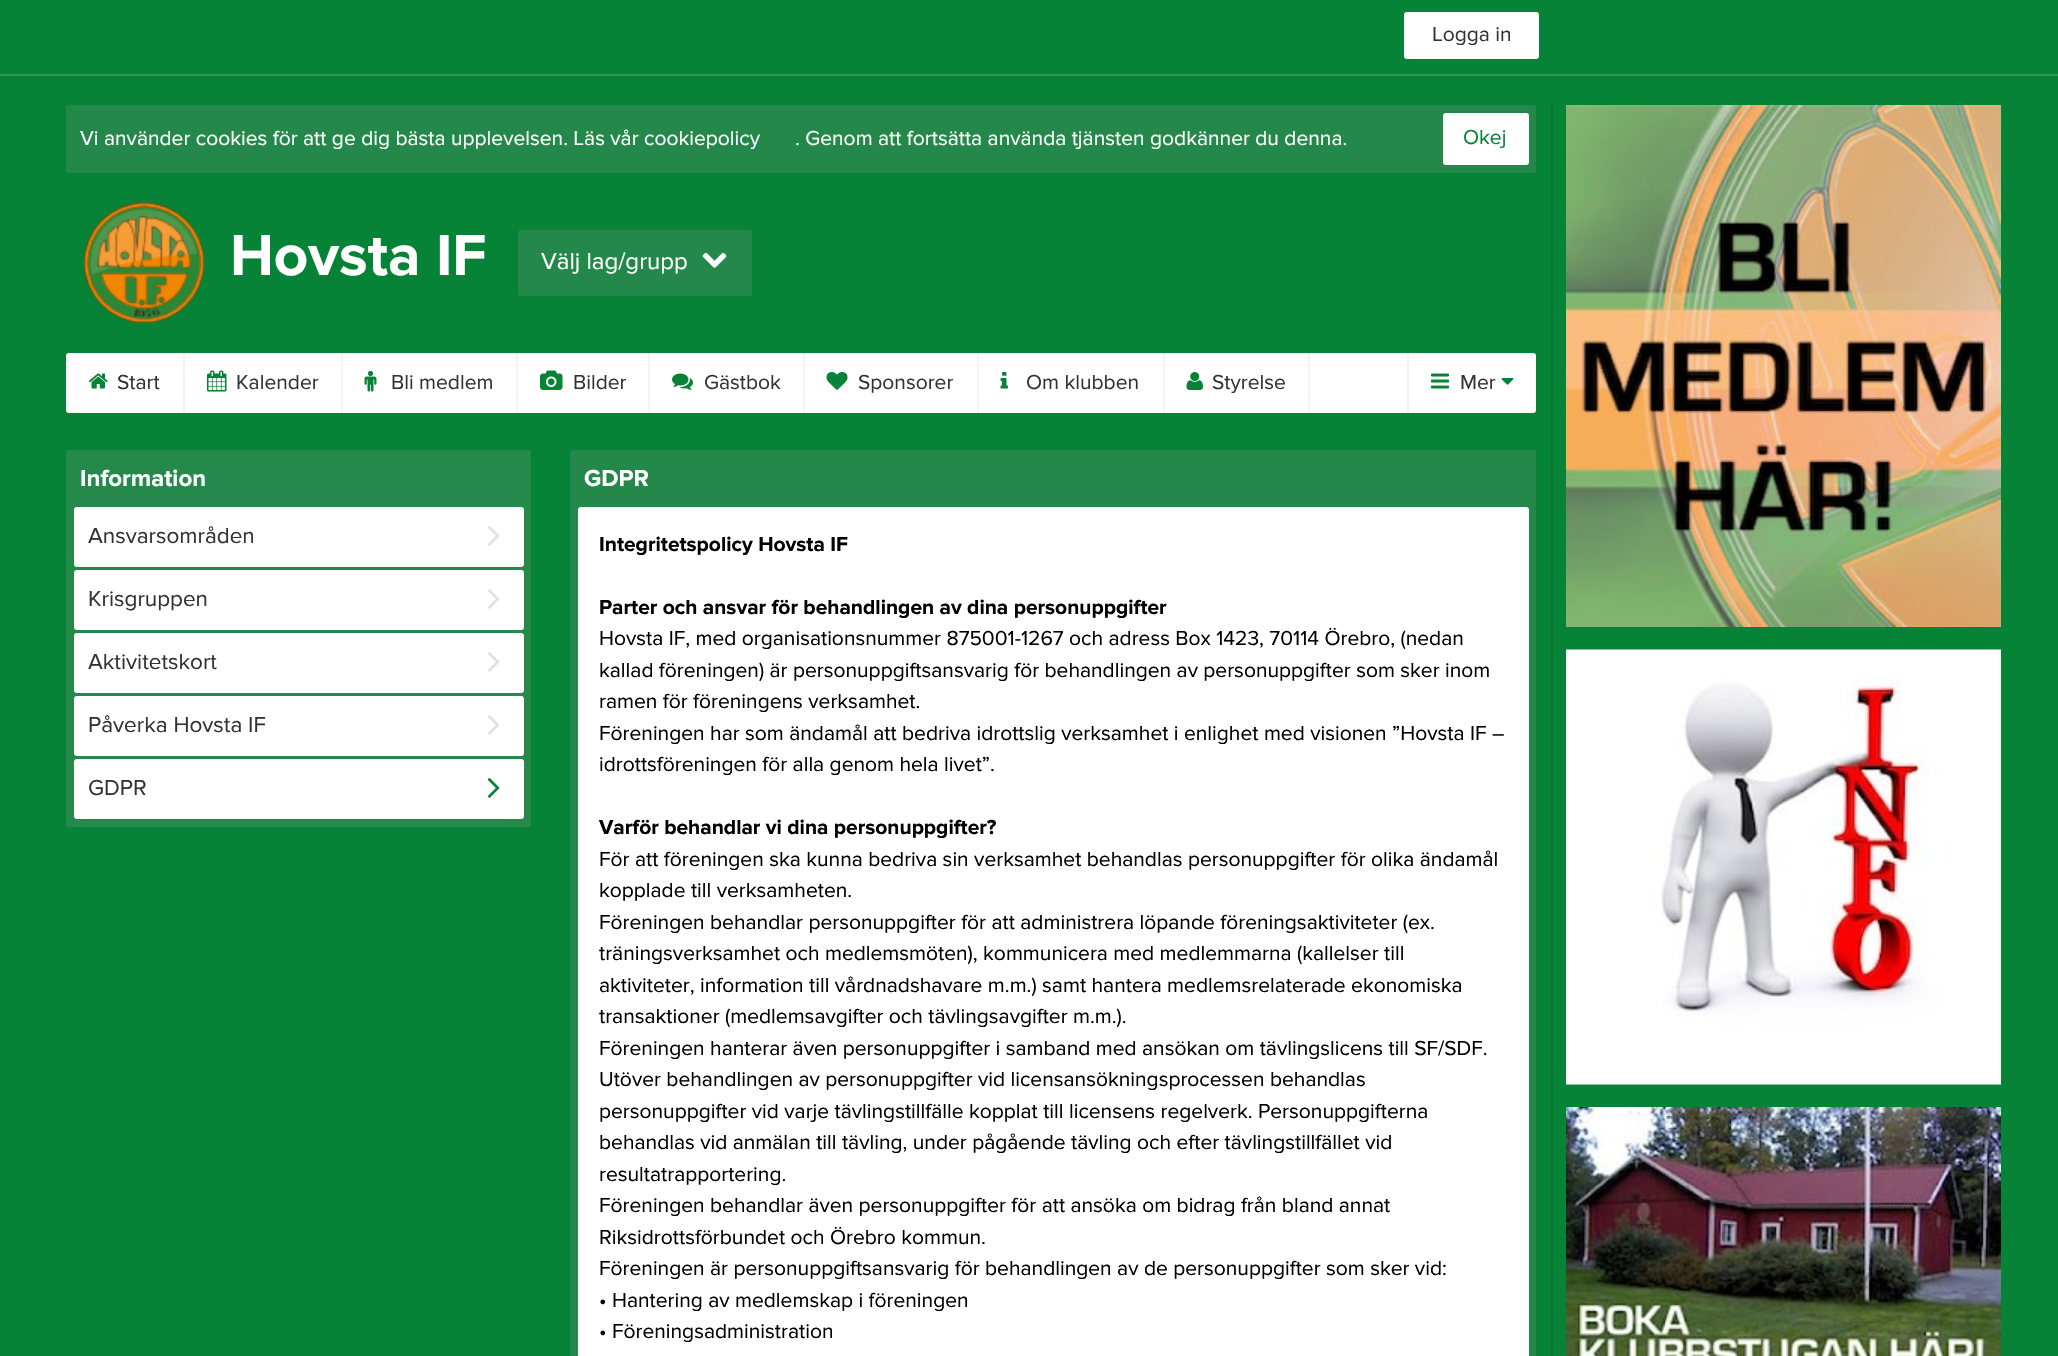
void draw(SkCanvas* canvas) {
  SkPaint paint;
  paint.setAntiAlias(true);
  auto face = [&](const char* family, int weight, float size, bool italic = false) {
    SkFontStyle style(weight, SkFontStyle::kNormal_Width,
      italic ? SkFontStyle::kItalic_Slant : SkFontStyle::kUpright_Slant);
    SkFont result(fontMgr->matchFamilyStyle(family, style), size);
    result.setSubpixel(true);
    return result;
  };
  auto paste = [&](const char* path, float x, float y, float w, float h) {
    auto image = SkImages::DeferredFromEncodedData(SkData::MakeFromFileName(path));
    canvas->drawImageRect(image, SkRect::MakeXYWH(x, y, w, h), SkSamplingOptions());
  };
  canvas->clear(0xff068336);
  paint.setColor(0xff2b9654);
  canvas->drawRect(SkRect::MakeXYWH(0, 74, 2058, 2), paint);
  paint.setColor(0xffffffff);
  canvas->drawRoundRect(SkRect::MakeXYWH(1404, 12, 135, 47), 3, 3, paint);
  paint.setColor(0xff24884b);
  canvas->drawRoundRect(SkRect::MakeXYWH(66, 105, 1470, 68), 3, 3, paint);
  paint.setColor(0xffffffff);
  canvas->drawRoundRect(SkRect::MakeXYWH(1443, 113, 86, 52), 3, 3, paint);
  paste("img/1.png", 84, 202, 120, 121);
  paint.setColor(0xff24884b);
  canvas->drawRoundRect(SkRect::MakeXYWH(518, 230, 234, 66), 3, 3, paint);
  paste("img/2.png", 702, 252, 25, 16);
  paint.setColor(0xffffffff);
  canvas->drawRoundRect(SkRect::MakeXYWH(66, 353, 1470, 60), 3, 3, paint);
  paint.setColor(0xfff3f3f3);
  canvas->drawRect(SkRect::MakeXYWH(183, 353, 2, 60), paint);
  paste("img/3.png", 88, 373, 20, 16);
  canvas->drawRect(SkRect::MakeXYWH(341, 353, 2, 60), paint);
  paste("img/4.png", 207, 370, 20, 22);
  canvas->drawRect(SkRect::MakeXYWH(516, 353, 2, 60), paint);
  paste("img/5.png", 364, 370, 13, 22);
  canvas->drawRect(SkRect::MakeXYWH(648, 353, 2, 60), paint);
  paste("img/6.png", 540, 370, 23, 20);
  canvas->drawRect(SkRect::MakeXYWH(803, 353, 2, 60), paint);
  paste("img/7.png", 672, 373, 21, 17);
  canvas->drawRect(SkRect::MakeXYWH(977, 353, 2, 60), paint);
  paste("img/8.png", 826, 372, 22, 18);
  canvas->drawRect(SkRect::MakeXYWH(1163, 353, 2, 60), paint);
  paste("img/9.png", 1000, 372, 8, 17);
  canvas->drawRect(SkRect::MakeXYWH(1308, 353, 2, 60), paint);
  paste("img/10.png", 1186, 372, 17, 18);
  canvas->drawRect(SkRect::MakeXYWH(1407, 353, 2, 60), paint);
  paste("img/11.png", 1431, 373, 18, 16);
  paste("img/12.png", 1501, 378, 13, 7);
  paint.setColor(0xff24894b);
  canvas->drawRoundRect(SkRect::MakeXYWH(66, 450, 465, 377), 3, 3, paint);
  paint.setColor(0xffffffff);
  canvas->drawRoundRect(SkRect::MakeXYWH(74, 507, 450, 60), 3, 3, paint);
  paste("img/13.png", 488, 526, 12, 20);
  canvas->drawRoundRect(SkRect::MakeXYWH(74, 570, 450, 60), 3, 3, paint);
  paste("img/13.png", 488, 589, 12, 20);
  canvas->drawRoundRect(SkRect::MakeXYWH(74, 633, 450, 60), 3, 3, paint);
  paste("img/13.png", 488, 652, 12, 20);
  canvas->drawRoundRect(SkRect::MakeXYWH(74, 696, 450, 60), 3, 3, paint);
  paste("img/13.png", 488, 715, 12, 20);
  canvas->drawRoundRect(SkRect::MakeXYWH(74, 759, 450, 60), 3, 3, paint);
  paste("img/14.png", 487, 778, 13, 20);
  paint.setColor(0xff24884b);
  canvas->drawRoundRect(SkRect::MakeXYWH(570, 450, 966, 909), 3, 3, paint);
  paint.setColor(0xffffffff);
  canvas->drawRoundRect(SkRect::MakeXYWH(578, 507, 951, 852), 3, 3, paint);
  paint.setColor(0xff057631);
  canvas->drawRect(SkRect::MakeXYWH(1551, 105, 2, 1251), paint);
  paste("img/15.png", 1566, 105, 435, 522);
  paint.setColor(0xff24894b);
  canvas->drawRect(SkRect::MakeXYWH(1566, 1084, 435, 1), paint);
  paste("img/16.png", 1566, 649, 435, 436);
  paste("img/17.png", 1566, 1107, 435, 249);
  auto f0 = face("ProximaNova", 400, 21);
  paint.setColor(0xff333333);
  canvas->drawString("Logga in", 1432, 41, f0, paint);
  paint.setColor(0xffffffff);
  canvas->drawString("Vi använder cookies för att ge dig bästa upplevelsen. Läs vår cookiepolicy", 80, 145, f0, paint);
  canvas->drawString(". Genom att fortsätta använda tjänsten godkänner du denna.", 795, 145, f0, paint);
  paint.setColor(0xff068336);
  canvas->drawString("Okej", 1463, 144, f0, paint);
  auto f1 = face("ProximaNova", 700, 60);
  paint.setColor(0xffffffff);
  canvas->drawString("Hovsta IF", 230, 275, f1, paint);
  auto f2 = face("ProximaNova", 400, 24);
  canvas->drawString("Välj lag/grupp", 541, 269, f2, paint);
  paint.setColor(0xff333333);
  {
    const struct { const char* s; float x, y; } items[] = {
      {"Start", 117, 389},
      {"Kalender", 236, 389},
      {"Bli medlem", 391, 389},
      {"Bilder", 573, 389},
      {"Gästbok", 704, 389},
      {"Sponsorer", 858, 389},
      {"Om klubben", 1026, 389},
      {"Styrelse", 1212, 389},
      {"Mer", 1460, 389},
    };
    for (auto [s, x, y] : items) {
      canvas->drawString(s, x, y, f0, paint);
    }
  }
  auto f3 = face("ProximaNova", 700, 24);
  paint.setColor(0xffffffff);
  canvas->drawString("Information", 80, 486, f3, paint);
  auto f4 = face("ProximaNova", 400, 22.5f);
  paint.setColor(0xff333333);
  {
    const struct { const char* s; float x, y; } items[] = {
      {"Ansvarsområden", 88, 543},
      {"Krisgruppen", 88, 606},
      {"Aktivitetskort", 88, 669},
      {"Påverka Hovsta IF", 88, 732},
      {"GDPR", 88, 795},
    };
    for (auto [s, x, y] : items) {
      canvas->drawString(s, x, y, f4, paint);
    }
  }
  paint.setColor(0xffffffff);
  canvas->drawString("GDPR", 584, 486, f3, paint);
  auto f5 = face("ProximaNova", 700, 21);
  paint.setColor(0xff000000);
  canvas->drawString("Integritetspolicy Hovsta IF", 599, 551, f5, paint);
  canvas->drawString("Parter och ansvar för behandlingen av dina personuppgifter", 599, 614, f5, paint);
  {
    const struct { const char* s; float x, y; } items[] = {
      {"Hovsta IF, med organisationsnummer 875001-1267 och adress Box 1423, 70114 Örebro, (nedan", 599, 645},
      {"kallad föreningen) är personuppgiftsansvarig för behandlingen av personuppgifter som sker inom", 599, 677},
      {"ramen för föreningens verksamhet.", 599, 708},
      {"Föreningen har som ändamål att bedriva idrottslig verksamhet i enlighet med visionen ”Hovsta IF –", 599, 740},
      {"idrottsföreningen för alla genom hela livet”.", 599, 771},
    };
    for (auto [s, x, y] : items) {
      canvas->drawString(s, x, y, f0, paint);
    }
  }
  canvas->drawString("Varför behandlar vi dina personuppgifter?", 599, 834, f5, paint);
  {
    const struct { const char* s; float x, y; } items[] = {
      {"För att föreningen ska kunna bedriva sin verksamhet behandlas personuppgifter för olika ändamål", 599, 866},
      {"kopplade till verksamheten.", 599, 897},
      {"Föreningen behandlar personuppgifter för att administrera löpande föreningsaktiviteter (ex.", 599, 929},
      {"träningsverksamhet och medlemsmöten), kommunicera med medlemmarna (kallelser till", 599, 960},
      {"aktiviteter, information till vårdnadshavare m.m.) samt hantera medlemsrelaterade ekonomiska", 599, 992},
      {"transaktioner (medlemsavgifter och tävlingsavgifter m.m.).", 599, 1023},
      {"Föreningen hanterar även personuppgifter i samband med ansökan om tävlingslicens till SF/SDF.", 599, 1055},
      {"Utöver behandlingen av personuppgifter vid licensansökningsprocessen behandlas", 599, 1086},
      {"personuppgifter vid varje tävlingstillfälle kopplat till licensens regelverk. Personuppgifterna", 599, 1118},
      {"behandlas vid anmälan till tävling, under pågående tävling och efter tävlingstillfället vid", 599, 1149},
      {"resultatrapportering.", 599, 1181},
      {"Föreningen behandlar även personuppgifter för att ansöka om bidrag från bland annat", 599, 1212},
      {"Riksidrottsförbundet och Örebro kommun.", 599, 1244},
      {"Föreningen är personuppgiftsansvarig för behandlingen av de personuppgifter som sker vid:", 599, 1275},
      {"• Hantering av medlemskap i föreningen", 599, 1307},
      {"• Föreningsadministration", 599, 1338},
    };
    for (auto [s, x, y] : items) {
      canvas->drawString(s, x, y, f0, paint);
    }
  }
}
